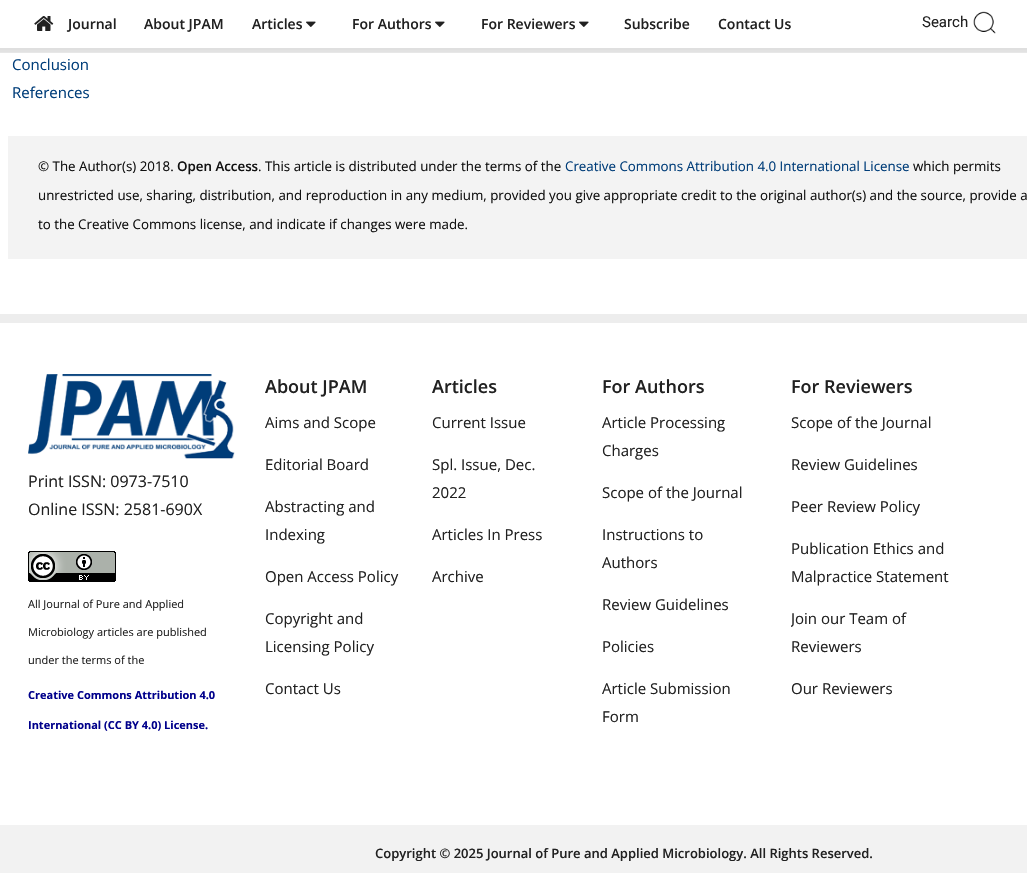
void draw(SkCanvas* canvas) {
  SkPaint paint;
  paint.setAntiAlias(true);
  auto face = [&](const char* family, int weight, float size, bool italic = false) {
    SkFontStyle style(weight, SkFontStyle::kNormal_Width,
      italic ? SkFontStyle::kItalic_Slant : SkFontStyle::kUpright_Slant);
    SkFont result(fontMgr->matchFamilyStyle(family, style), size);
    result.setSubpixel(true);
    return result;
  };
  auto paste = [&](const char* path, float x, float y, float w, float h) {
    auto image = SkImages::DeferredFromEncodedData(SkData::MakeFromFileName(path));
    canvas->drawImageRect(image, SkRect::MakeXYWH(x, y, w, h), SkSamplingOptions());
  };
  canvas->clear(0xffffffff);
  paste("img/1.png", 34, 16, 20, 15);
  paste("img/2.png", 306, 21, 10, 6);
  paste("img/2.png", 435, 21, 10, 6);
  paste("img/2.png", 579, 21, 10, 6);
  paste("img/3.png", 973, 11, 23, 23);
  paint.setColor(0xfff2f2f2);
  canvas->drawRect(SkRect::MakeXYWH(0, 48, 1027, 5), paint);
  paste("img/4.png", 0, 48, 1027, 5);
  paint.setColor(0xfff3f3f3);
  canvas->drawRect(SkRect::MakeXYWH(8, 136, 1019, 123), paint);
  paint.setColor(0xffededed);
  canvas->drawRect(SkRect::MakeXYWH(0, 314, 1027, 9), paint);
  paste("img/5.png", 28, 374, 207, 85);
  paste("img/6.png", 28, 551, 88, 31);
  paint.setColor(0xfff2f2f2);
  canvas->drawRect(SkRect::MakeXYWH(0, 825, 1027, 48), paint);
  auto f0 = face("Open Sans", 600, 14);
  paint.setColor(0xff212121);
  {
    const struct { const char* s; float x, y; } items[] = {
      {"Journal", 68, 29},
      {"About JPAM", 144, 29},
      {"Articles", 252, 29},
      {"For Authors", 352, 29},
      {"For Reviewers", 481, 29},
      {"Subscribe", 624, 29},
      {"Contact Us", 718, 29},
    };
    for (auto [s, x, y] : items) {
      canvas->drawString(s, x, y, f0, paint);
    }
  }
  auto f1 = face("Roboto", 400, 15);
  canvas->drawString("Search", 922, 27, f1, paint);
  auto f2 = face("Open Sans", 400, 15);
  paint.setColor(0xff003d79);
  canvas->drawString("Conclusion", 12, 70, f2, paint);
  canvas->drawString("References", 12, 98, f2, paint);
  auto f3 = face("Open Sans", 400, 13.33f);
  paint.setColor(0xff111111);
  canvas->drawString("© The Author(s) 2018.", 38, 171, f3, paint);
  auto f4 = face("Open Sans", 600, 13.33f);
  canvas->drawString("Open Access", 177, 171, f4, paint);
  canvas->drawString(". This article is distributed under the terms of the", 258, 171, f3, paint);
  paint.setColor(0xff003d79);
  canvas->drawString("Creative Commons Attribution 4.0 International License", 565, 171, f3, paint);
  paint.setColor(0xff111111);
  {
    const struct { const char* s; float x, y; } items[] = {
      {"which permits", 913, 171},
      {"unrestricted use, sharing, distribution, and reproduction in any medium, provided you give appropriate credit to the original author(s) and the source, provide a", 38, 200},
      {"to the Creative Commons license, and indicate if changes were made.", 38, 229},
    };
    for (auto [s, x, y] : items) {
      canvas->drawString(s, x, y, f3, paint);
    }
  }
  auto f5 = face("Open Sans", 400, 16);
  paint.setColor(0xff212121);
  canvas->drawString("Print ISSN: 0973-7510", 28, 487, f5, paint);
  canvas->drawString("Online ISSN: 2581-690X", 28, 515, f5, paint);
  auto f6 = face("Open Sans", 400, 11);
  {
    const struct { const char* s; float x, y; } items[] = {
      {"All Journal of Pure and Applied", 28, 608},
      {"Microbiology articles are published", 28, 636},
      {"under the terms of the", 28, 664},
    };
    for (auto [s, x, y] : items) {
      canvas->drawString(s, x, y, f6, paint);
    }
  }
  auto f7 = face("Open Sans", 700, 11);
  paint.setColor(0xff00008b);
  canvas->drawString("Creative Commons Attribution 4.0", 28, 699, f7, paint);
  canvas->drawString("International (CC BY 4.0) License.", 28, 729, f7, paint);
  auto f8 = face("Open Sans", 600, 18);
  paint.setColor(0xff212121);
  canvas->drawString("About JPAM", 265, 393, f8, paint);
  {
    const struct { const char* s; float x, y; } items[] = {
      {"Aims and Scope", 265, 428},
      {"Editorial Board", 265, 470},
      {"Abstracting and", 265, 512},
      {"Indexing", 265, 540},
      {"Open Access Policy", 265, 582},
      {"Copyright and", 265, 624},
      {"Licensing Policy", 265, 652},
      {"Contact Us", 265, 694},
    };
    for (auto [s, x, y] : items) {
      canvas->drawString(s, x, y, f2, paint);
    }
  }
  canvas->drawString("Articles", 432, 393, f8, paint);
  {
    const struct { const char* s; float x, y; } items[] = {
      {"Current Issue", 432, 428},
      {"Spl. Issue, Dec.", 432, 470},
      {"2022", 432, 498},
      {"Articles In Press", 432, 540},
      {"Archive", 432, 582},
    };
    for (auto [s, x, y] : items) {
      canvas->drawString(s, x, y, f2, paint);
    }
  }
  canvas->drawString("For Authors", 602, 393, f8, paint);
  {
    const struct { const char* s; float x, y; } items[] = {
      {"Article Processing", 602, 428},
      {"Charges", 602, 456},
      {"Scope of the Journal", 602, 498},
      {"Instructions to", 602, 540},
      {"Authors", 602, 568},
      {"Review Guidelines", 602, 610},
      {"Policies", 602, 652},
      {"Article Submission", 602, 694},
      {"Form", 602, 722},
    };
    for (auto [s, x, y] : items) {
      canvas->drawString(s, x, y, f2, paint);
    }
  }
  canvas->drawString("For Reviewers", 791, 393, f8, paint);
  {
    const struct { const char* s; float x, y; } items[] = {
      {"Scope of the Journal", 791, 428},
      {"Review Guidelines", 791, 470},
      {"Peer Review Policy", 791, 512},
      {"Publication Ethics and", 791, 554},
      {"Malpractice Statement", 791, 582},
    };
    for (auto [s, x, y] : items) {
      canvas->drawString(s, x, y, f2, paint);
    }
  }
  canvas->save();
  canvas->clipRect(SkRect::MakeXYWH(791, 398, 160, 318));
  canvas->drawString("Join our Team of", 791, 624, f2, paint);
  canvas->restore();
  canvas->drawString("Reviewers", 791, 652, f2, paint);
  canvas->drawString("Our Reviewers", 791, 694, f2, paint);
  auto f9 = face("Open Sans", 600, 13);
  canvas->drawString("Copyright © 2025 Journal of Pure and Applied Microbiology. All Rights Reserved.", 375, 858, f9, paint);
}
